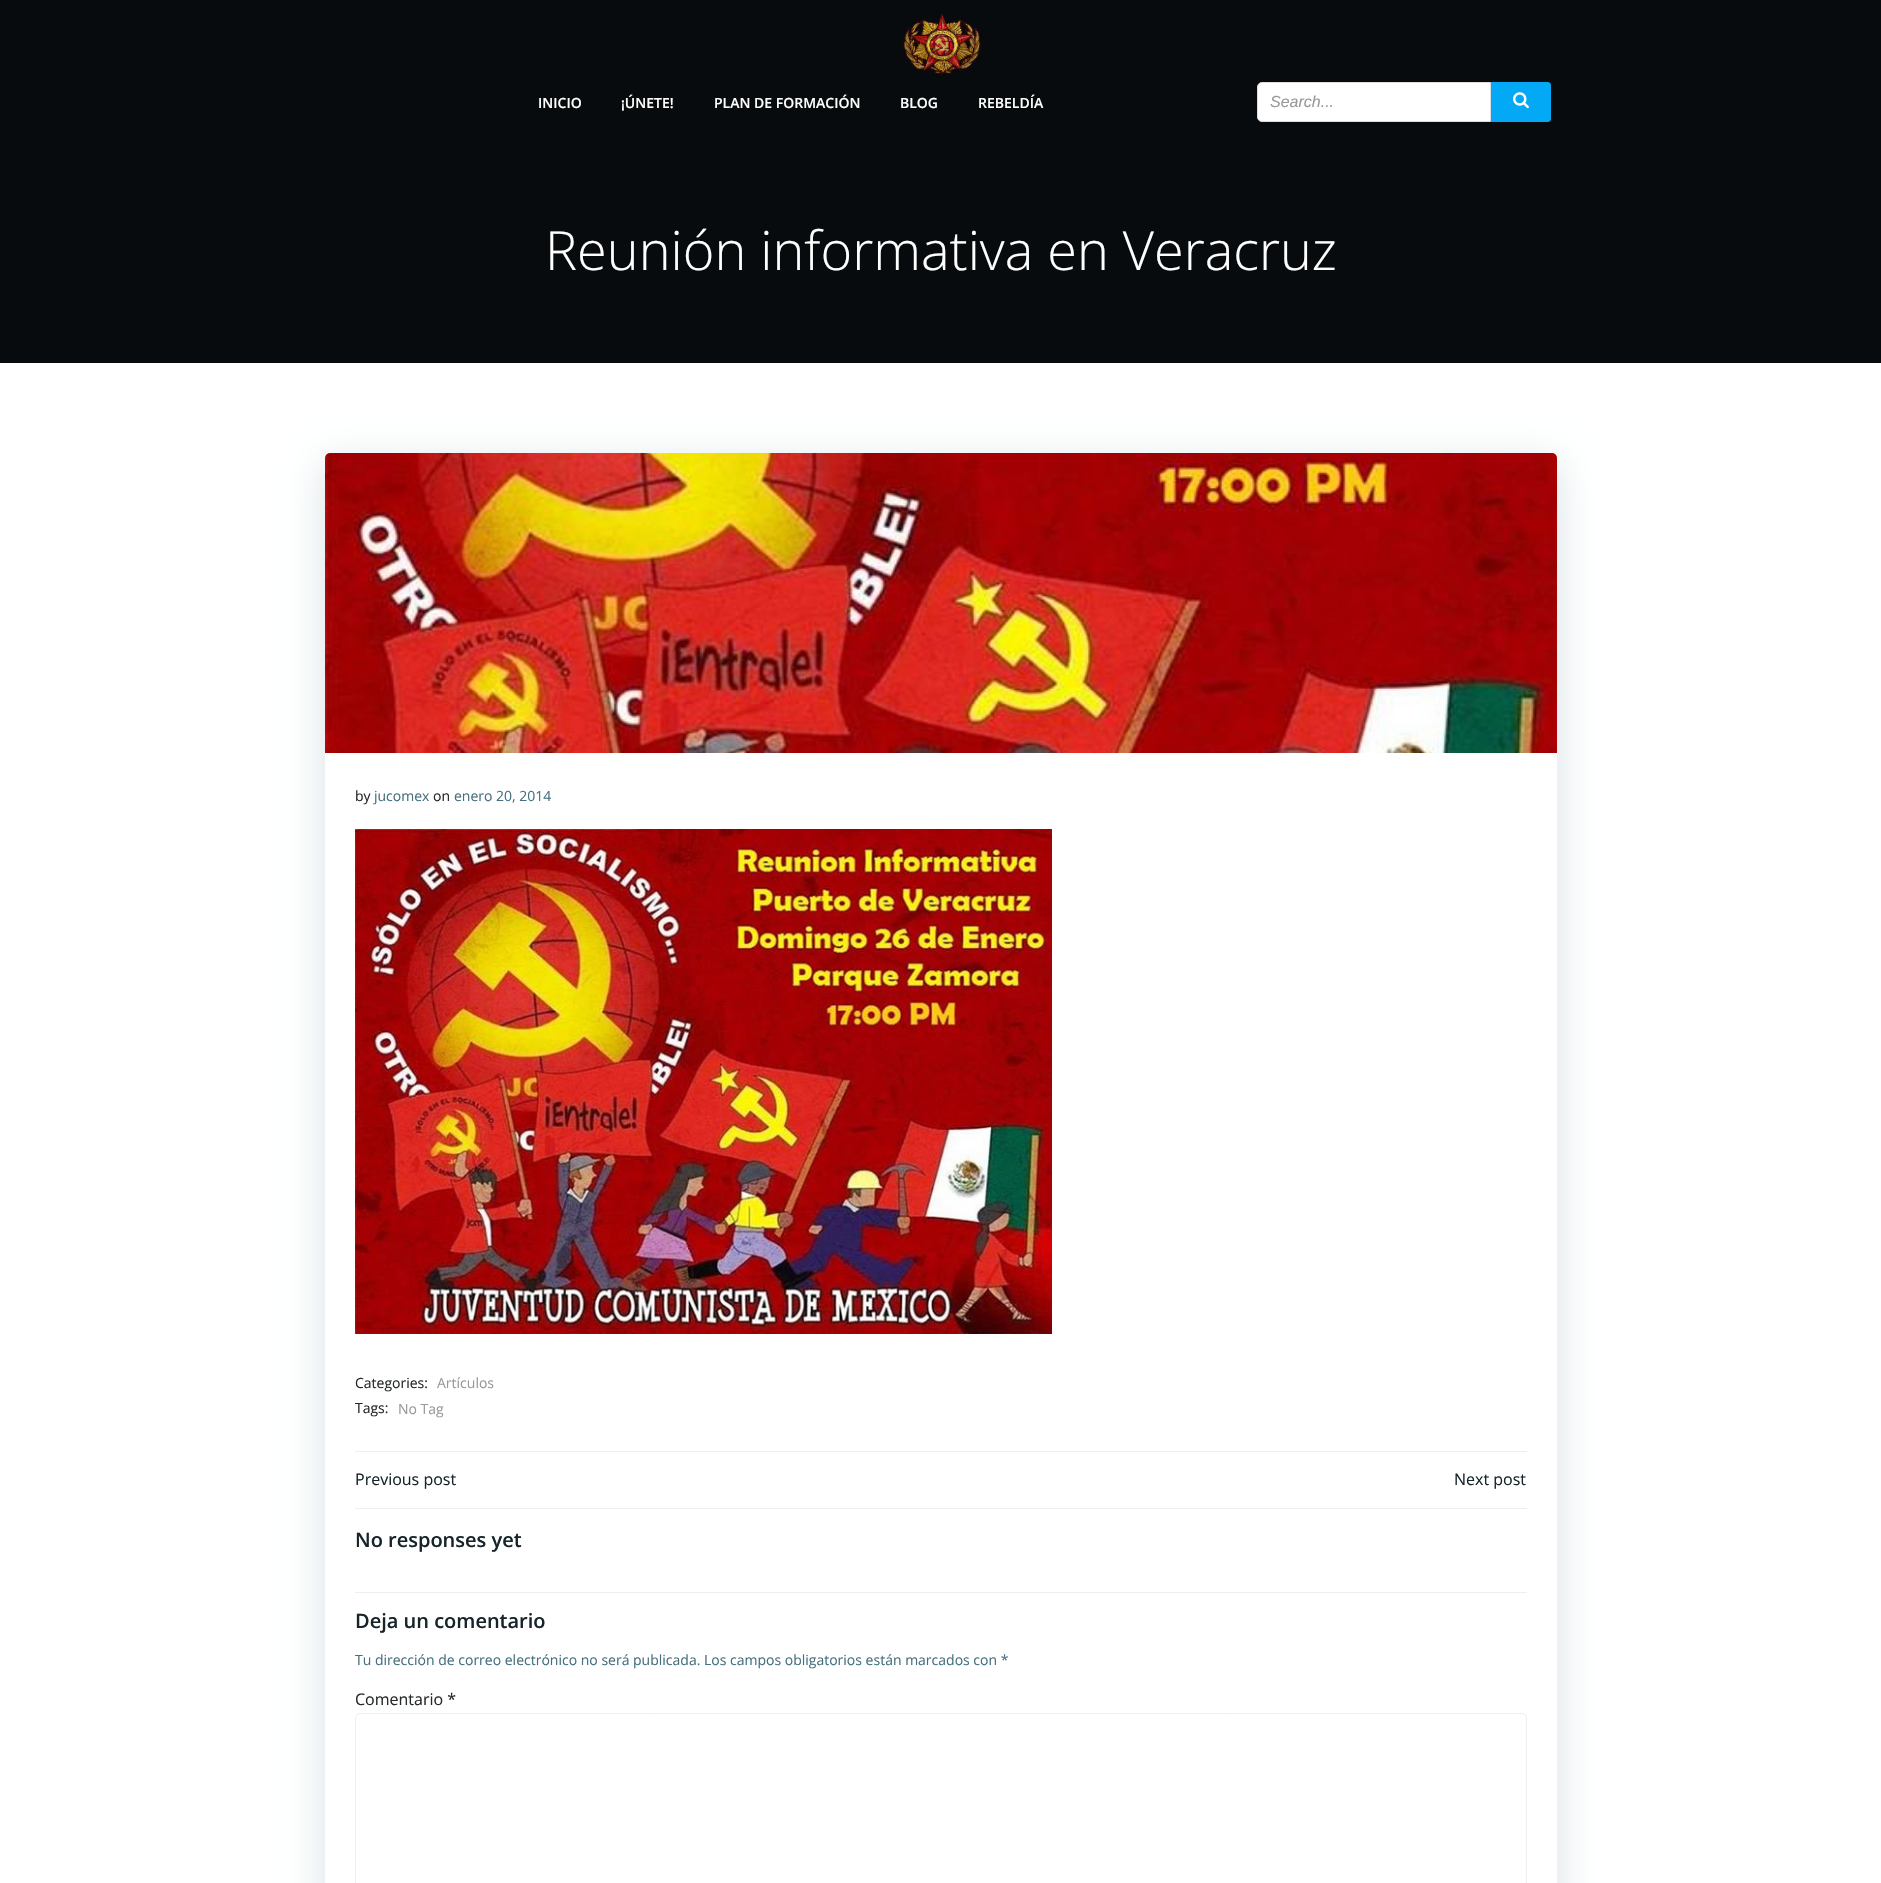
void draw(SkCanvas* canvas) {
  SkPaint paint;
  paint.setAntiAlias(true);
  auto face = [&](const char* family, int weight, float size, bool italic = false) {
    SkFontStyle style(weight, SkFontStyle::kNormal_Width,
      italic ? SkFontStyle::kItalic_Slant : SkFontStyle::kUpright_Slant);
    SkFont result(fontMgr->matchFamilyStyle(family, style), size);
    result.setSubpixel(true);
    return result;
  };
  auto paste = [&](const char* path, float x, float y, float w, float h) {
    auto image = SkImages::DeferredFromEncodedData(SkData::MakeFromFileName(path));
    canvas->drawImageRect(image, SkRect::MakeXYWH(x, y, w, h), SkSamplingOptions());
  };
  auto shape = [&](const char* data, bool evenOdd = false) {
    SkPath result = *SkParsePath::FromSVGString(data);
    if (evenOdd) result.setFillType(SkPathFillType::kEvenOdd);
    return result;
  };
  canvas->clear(0xffffffff);
  paint.setColor(0xff070b0d);
  canvas->drawRect(SkRect::MakeXYWH(0, 0, 1881, 363), paint);
  paste("img/1.png", 903, 13, 78, 61);
  paint.setColor(0xffffffff);
  canvas->drawPath(shape("M1262 82.5H1490.5V121.5H1262C1259.5 121.5 1257.5 119.5 1257.5 117V87C1257.5 84.5 1259.5 82.5 1262 82.5Z"), paint);
  paint.setStroke(true);
  paint.setStrokeWidth(1);
  paint.setColor(0xffdedede);
  canvas->drawPath(shape("M1262 82.5H1490.5V121.5H1262C1259.5 121.5 1257.5 119.5 1257.5 117V87C1257.5 84.5 1259.5 82.5 1262 82.5Z"), paint);
  paint.setStroke(false);
  paint.setColor(0xff03a9f4);
  canvas->drawPath(shape("M1491 82H1548C1549.5 82 1551 83.5 1551 85V119C1551 120.5 1549.5 122 1548 122H1491Z"), paint);
  paste("img/2.png", 1513, 92, 16, 17);
  paint.setColor(0x2601334a);
  paint.setMaskFilter(SkMaskFilter::MakeBlur(kNormal_SkBlurStyle, 20));
  canvas->drawRoundRect(SkRect::MakeXYWH(325, 463, 1232, 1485), 5, 5, paint);
  paint.setMaskFilter(nullptr);
  paint.setColor(0xffffffff);
  canvas->drawRoundRect(SkRect::MakeXYWH(325, 453, 1232, 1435), 5, 5, paint);
  paste("img/3.png", 325, 453, 1232, 300);
  paste("img/4.png", 355, 829, 697, 505);
  {
    const struct { float x, y, w, h; SkColor color; } items[] = {
      {355, 1451, 1172, 1, 0xffeeeeee},
      {355, 1508, 1172, 1, 0xffeeeeee},
      {355, 1592, 1172, 1, 0xffeeeeee},
    };
    for (auto [x, y, w, h, color] : items) {
      paint.setColor(color);
      canvas->drawRect(SkRect::MakeXYWH(x, y, w, h), paint);
    }
  }
  paint.setStroke(true);
  canvas->drawRoundRect(SkRect::MakeXYWH(355.5f, 1713.5f, 1171, 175), 4.5f, 4.5f, paint);
  auto f0 = face("Open Sans", 600, 14);
  paint.setStroke(false);
  paint.setColor(0xffffffff);
  {
    const struct { const char* s; float x, y; } items[] = {
      {"INICIO", 538, 108},
      {"¡ÚNETE!", 621, 108},
      {"PLAN DE FORMACIÓN", 714, 108},
      {"BLOG", 900, 108},
      {"REBELDÍA", 978, 108},
    };
    for (auto [s, x, y] : items) {
      canvas->drawString(s, x, y, f0, paint);
    }
  }
  auto f1 = face("Liberation Sans", 400, 16, true);
  paint.setColor(0xff999999);
  canvas->drawString("Search...", 1270, 107, f1, paint);
  auto f2 = face("Open Sans", 300, 54);
  paint.setColor(0xffffffff);
  canvas->drawString("Reunión informativa en Veracruz", 545, 270, f2, paint);
  auto f3 = face("Open Sans", 400, 14);
  paint.setColor(0xff25292a);
  canvas->drawString("by", 355, 801, f3, paint);
  paint.setColor(0xff46707f);
  canvas->drawString("jucomex", 374, 801, f3, paint);
  paint.setColor(0xff25292a);
  canvas->drawString("on", 433, 801, f3, paint);
  paint.setColor(0xff46707f);
  canvas->drawString("enero 20, 2014", 454, 801, f3, paint);
  paint.setColor(0xff25292a);
  canvas->drawString("Categories:", 355, 1388, f3, paint);
  paint.setColor(0xff999999);
  canvas->drawString("Artículos", 437, 1388, f3, paint);
  paint.setColor(0xff25292a);
  canvas->drawString("Tags:", 355, 1413, f3, paint);
  paint.setColor(0xff999999);
  canvas->drawString("No Tag", 398, 1414, f3, paint);
  auto f4 = face("Open Sans", 400, 16);
  paint.setColor(0xff17252a);
  canvas->drawString("Previous post", 355, 1485, f4, paint);
  canvas->drawString("Next post", 1454, 1485, f4, paint);
  auto f5 = face("Open Sans", 600, 20);
  canvas->drawString("No responses yet", 355, 1547, f5, paint);
  canvas->drawString("Deja un comentario", 355, 1628, f5, paint);
  paint.setColor(0xff46707f);
  canvas->drawString("Tu dirección de correo electrónico no será publicada. Los campos obligatorios están marcados con *", 355, 1665, f3, paint);
  paint.setColor(0xff25292a);
  canvas->drawString("Comentario *", 355, 1705, f4, paint);
}
